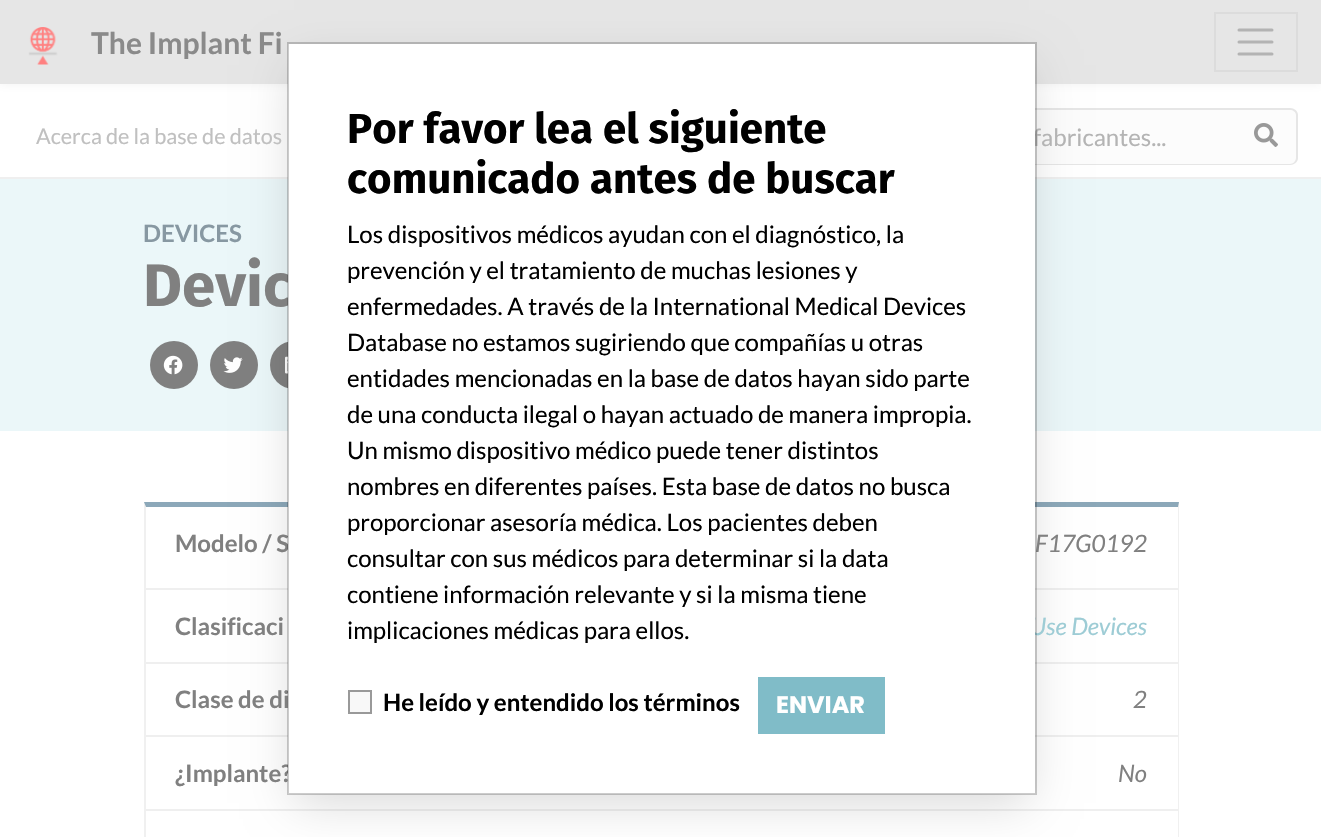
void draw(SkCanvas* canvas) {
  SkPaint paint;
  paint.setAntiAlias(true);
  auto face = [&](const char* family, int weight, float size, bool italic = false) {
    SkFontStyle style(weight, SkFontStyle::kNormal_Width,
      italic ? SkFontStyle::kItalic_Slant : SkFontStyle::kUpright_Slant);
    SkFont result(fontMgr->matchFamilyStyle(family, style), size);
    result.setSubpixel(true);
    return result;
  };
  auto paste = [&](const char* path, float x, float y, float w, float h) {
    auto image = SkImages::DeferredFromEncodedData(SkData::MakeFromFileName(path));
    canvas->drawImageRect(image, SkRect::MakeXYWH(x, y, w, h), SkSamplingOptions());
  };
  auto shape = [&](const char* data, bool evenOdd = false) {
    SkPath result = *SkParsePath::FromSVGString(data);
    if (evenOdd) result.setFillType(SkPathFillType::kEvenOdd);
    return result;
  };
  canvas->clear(0xffffffff);
  paint.setColor(0x1a808080);
  paint.setMaskFilter(SkMaskFilter::MakeBlur(kNormal_SkBlurStyle, 4.5f));
  canvas->drawRect(SkRect::MakeXYWH(0, 0, 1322, 84), paint);
  paint.setMaskFilter(nullptr);
  paint.setColor(0xffe6e6e6);
  canvas->drawRect(SkRect::MakeXYWH(0, 0, 1321, 84), paint);
  paste("img/1.png", 28, 27, 30, 38);
  paint.setStroke(true);
  paint.setStrokeWidth(2);
  paint.setColor(0xffdcdcdc);
  canvas->drawRect(SkRect::MakeXYWH(1215, 13, 82, 58), paint);
  paint.setStrokeWidth(3);
  paint.setStrokeCap(SkPaint::kRound_Cap);
  paint.setColor(0xffb3b3b3);
  canvas->drawPath(shape("M1239 30H1272M1239 42H1272M1239 54H1272"), paint);
  paint.setStroke(false);
  paint.setColor(0xffefefef);
  canvas->drawRect(SkRect::MakeXYWH(0, 177, 1321, 2), paint);
  paint.setColor(0xfffcfcfc);
  canvas->drawRect(SkRect::MakeXYWH(1035, 110, 201, 54), paint);
  canvas->drawPath(shape("M1236 108H1290C1294.5 108 1298 111.5 1298 116V157C1298 161.5 1294.5 165 1290 165H1236Z"), paint);
  paint.setColor(0xffe6e6e6);
  canvas->drawPath(shape("M1236 108H1290C1294 108 1298 111 1298 115V158C1298 162 1294 165 1290 165H1236ZM1236 110H1290C1293 110 1296 112 1296 115V158C1296 161 1293 164 1290 164H1236Z", true), paint);
  canvas->drawPath(shape("M810 108H1238V165H810C806 165 802 162 802 158V115C802 111 806 108 810 108ZM810 110H1238V164H810C807 164 804 161 804 158V115C804 112 807 110 810 110Z", true), paint);
  paste("img/2.png", 1254, 123, 24, 24);
  paint.setColor(0xffebf7f9);
  canvas->drawRect(SkRect::MakeXYWH(0, 179, 1321, 252), paint);
  paint.setColor(0xff808080);
  canvas->drawCircle(174, 365, 24, paint);
  paste("img/3.png", 163, 355, 20, 20);
  canvas->drawCircle(234, 365, 24, paint);
  paste("img/4.png", 223, 357, 20, 16);
  canvas->drawCircle(294, 365, 24, paint);
  paste("img/5.png", 285, 356, 3, 18);
  paint.setColor(0xff8ca8b9);
  canvas->drawPath(shape("M144 502H1179L1178 507H146Z"), paint);
  paint.setColor(0x1f808080);
  canvas->drawPath(shape("M1179 502V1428L1178 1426V507Z"), paint);
  canvas->drawPath(shape("M144 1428V502L146 507V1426Z"), paint);
  {
    const struct { float x, y, w, h; SkColor color; } items[] = {
      {146, 588, 1032, 2, 0xffefefef},
      {146, 662, 1032, 2, 0xffefefef},
      {146, 735, 1032, 2, 0xffefefef},
      {146, 809, 1032, 2, 0xffefefef},
    };
    for (auto [x, y, w, h, color] : items) {
      paint.setColor(color);
      canvas->drawRect(SkRect::MakeXYWH(x, y, w, h), paint);
    }
  }
  paint.setColor(0x26000000);
  paint.setMaskFilter(SkMaskFilter::MakeBlur(kNormal_SkBlurStyle, 22.5f));
  canvas->drawRect(SkRect::MakeXYWH(294, 65, 735, 738), paint);
  paint.setMaskFilter(nullptr);
  auto f0 = face("Lato", 700, 30);
  paint.setColor(0xff8a8a8a);
  canvas->drawString("The Implant Fi", 91, 54, f0, paint);
  auto f1 = face("Lato", 400, 21.6f);
  paint.setColor(0xffc0c0c0);
  canvas->drawString("Acerca de la base de datos", 36, 144, f1, paint);
  auto f2 = face("Lato", 400, 24);
  paint.setColor(0xffb4b4b4);
  canvas->drawString("fabricantes...", 1033, 146, f2, paint);
  auto f3 = face("Lato", 700, 24);
  paint.setColor(0xff8798a2);
  canvas->drawString("DEVICES", 143, 242, f3, paint);
  auto f4 = face("Fira Sans", 700, 60);
  paint.setColor(0xff808080);
  canvas->drawString("Devic", 143, 306, f4, paint);
  canvas->drawString("Modelo / S", 175, 552, f3, paint);
  auto f5 = face("Lato", 400, 24, true);
  canvas->drawString("F17G0192", 1035, 552, f5, paint);
  canvas->drawString("Clasificaci", 175, 635, f3, paint);
  paint.setColor(0xff9dccd5);
  canvas->drawString("Use Devices", 1030, 635, f5, paint);
  paint.setColor(0xff808080);
  canvas->drawString("Clase de di", 175, 708, f3, paint);
  canvas->drawString("2", 1133, 708, f5, paint);
  canvas->drawString("¿Implante?", 175, 782, f3, paint);
  canvas->drawString("No", 1118, 782, f5, paint);
  paint.setColor(0xffffffff);
  canvas->drawRect(SkRect::MakeXYWH(288, 44, 747, 750), paint);
  paint.setStroke(true);
  paint.setStrokeWidth(2);
  paint.setStrokeCap(SkPaint::kButt_Cap);
  paint.setColor(0x33000000);
  canvas->drawRect(SkRect::MakeXYWH(288, 43, 748, 751), paint);
  auto f6 = face("Fira Sans", 700, 42);
  paint.setStroke(false);
  paint.setColor(0xff000000);
  canvas->drawString("Por favor lea el siguiente", 347, 143, f6, paint);
  canvas->drawString("comunicado antes de buscar", 347, 193, f6, paint);
  {
    const struct { const char* s; float x, y; } items[] = {
      {"Los dispositivos médicos ayudan con el diagnóstico, la", 347, 243},
      {"prevención y el tratamiento de muchas lesiones y", 347, 279},
      {"enfermedades. A través de la International Medical Devices", 347, 315},
      {"Database no estamos sugiriendo que compañías u otras", 347, 351},
      {"entidades mencionadas en la base de datos hayan sido parte", 347, 387},
      {"de una conducta ilegal o hayan actuado de manera impropia.", 347, 423},
      {"Un mismo dispositivo médico puede tener distintos", 347, 459},
      {"nombres en diferentes países. Esta base de datos no busca", 347, 495},
      {"proporcionar asesoría médica. Los pacientes deben", 347, 531},
      {"consultar con sus médicos para determinar si la data", 347, 567},
      {"contiene información relevante y si la misma tiene", 347, 603},
      {"implicaciones médicas para ellos.", 347, 639},
    };
    for (auto [s, x, y] : items) {
      canvas->drawString(s, x, y, f2, paint);
    }
  }
  paint.setColor(0xfff8f8f8);
  canvas->drawRect(SkRect::MakeXYWH(349, 691, 22, 22), paint);
  paint.setStroke(true);
  paint.setColor(0xff999999);
  canvas->drawRect(SkRect::MakeXYWH(349, 691, 22, 22), paint);
  paint.setStroke(false);
  paint.setColor(0xff000000);
  canvas->drawString("He leído y entendido los términos", 383, 711, f3, paint);
  paint.setColor(0xff80bcc8);
  canvas->drawRect(SkRect::MakeXYWH(758, 677, 127, 57), paint);
  auto f7 = face("Poppins", 700, 24);
  paint.setColor(0xffffffff);
  canvas->drawString("ENVIAR", 776, 713, f7, paint);
}
